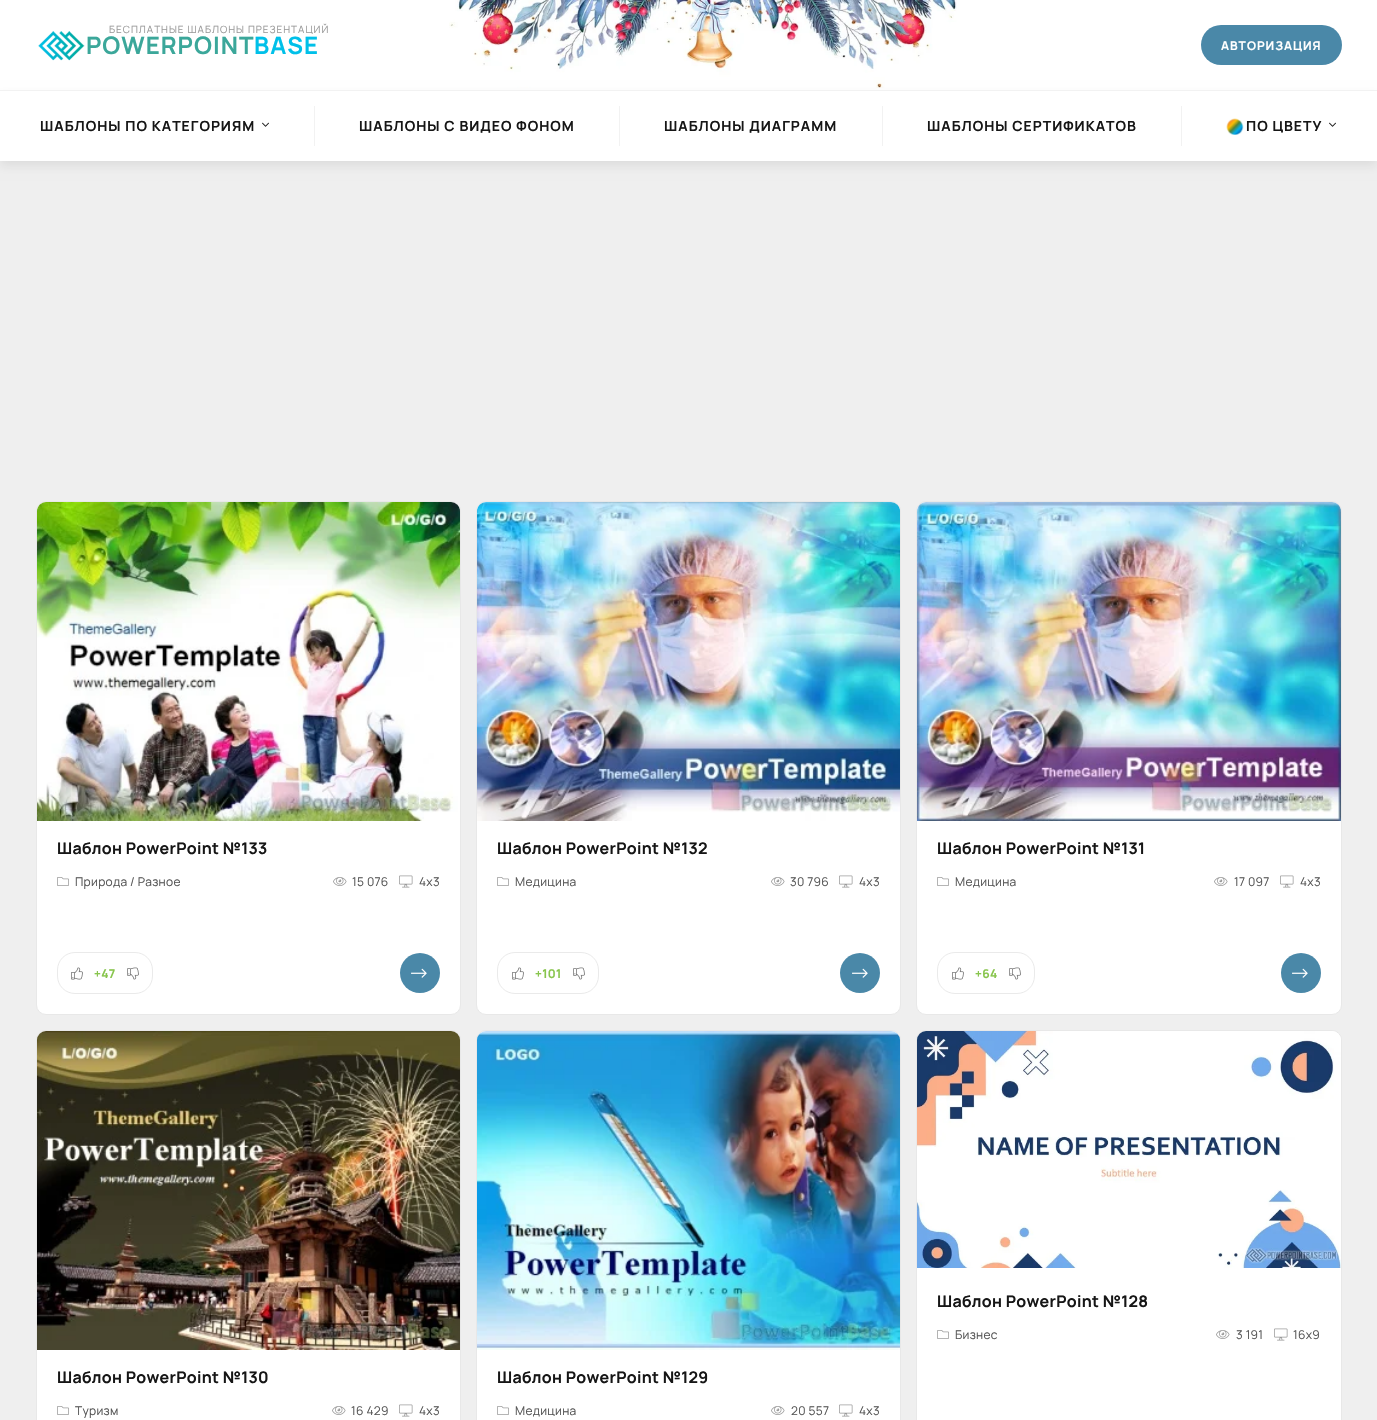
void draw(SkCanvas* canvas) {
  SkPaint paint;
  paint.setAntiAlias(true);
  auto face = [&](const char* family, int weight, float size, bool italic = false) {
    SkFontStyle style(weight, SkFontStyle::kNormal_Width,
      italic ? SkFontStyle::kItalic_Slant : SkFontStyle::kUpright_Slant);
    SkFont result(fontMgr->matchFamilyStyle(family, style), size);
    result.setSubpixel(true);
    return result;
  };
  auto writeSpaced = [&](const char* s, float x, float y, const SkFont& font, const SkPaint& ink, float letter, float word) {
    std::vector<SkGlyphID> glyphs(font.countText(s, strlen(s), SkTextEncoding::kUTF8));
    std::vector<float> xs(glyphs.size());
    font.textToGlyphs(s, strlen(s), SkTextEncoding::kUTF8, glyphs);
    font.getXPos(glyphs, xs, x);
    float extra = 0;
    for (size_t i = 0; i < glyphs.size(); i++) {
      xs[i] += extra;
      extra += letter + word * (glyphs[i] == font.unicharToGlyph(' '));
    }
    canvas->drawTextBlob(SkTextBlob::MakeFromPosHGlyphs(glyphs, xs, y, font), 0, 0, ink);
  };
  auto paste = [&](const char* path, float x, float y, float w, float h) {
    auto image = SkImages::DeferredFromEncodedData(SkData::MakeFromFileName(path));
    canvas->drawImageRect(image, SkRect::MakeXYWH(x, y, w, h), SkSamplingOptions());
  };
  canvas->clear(0xffefefef);
  paint.setColor(0xffffffff);
  canvas->drawRect(SkRect::MakeXYWH(0, 0, 1377, 90), paint);
  paste("img/1.png", 449, 0, 508, 88);
  paste("img/2.png", 38, 31, 47, 30);
  paint.setColor(0xff4a88a8);
  canvas->drawRoundRect(SkRect::MakeXYWH(1201, 25, 141, 40), 20, 20, paint);
  paint.setColor(0x14000000);
  paint.setMaskFilter(SkMaskFilter::MakeBlur(kNormal_SkBlurStyle, 5));
  canvas->drawRect(SkRect::MakeXYWH(0, 95, 1377, 71), paint);
  paint.setMaskFilter(nullptr);
  paint.setColor(0xffffffff);
  canvas->drawRect(SkRect::MakeXYWH(0, 91, 1377, 70), paint);
  paint.setColor(0xfff2f2f2);
  canvas->drawRect(SkRect::MakeXYWH(0, 90, 1377, 1), paint);
  paste("img/3.png", 262, 122, 7, 5);
  {
    const struct { float x, y, w, h; SkColor color; } items[] = {
      {314, 106, 1, 40, 0xfff2f2f2},
      {619, 106, 1, 40, 0xfff2f2f2},
      {882, 106, 1, 40, 0xfff2f2f2},
      {1181, 106, 1, 40, 0xfff2f2f2},
    };
    for (auto [x, y, w, h, color] : items) {
      paint.setColor(color);
      canvas->drawRect(SkRect::MakeXYWH(x, y, w, h), paint);
    }
  }
  paste("img/4.png", 1226, 118, 18, 17);
  paste("img/3.png", 1329, 122, 7, 5);
  paint.setColor(0xffffffff);
  canvas->drawRoundRect(SkRect::MakeXYWH(36.5f, 501.5f, 424, 513), 9.5f, 9.5f, paint);
  paint.setStroke(true);
  paint.setStrokeWidth(1);
  paint.setColor(0xffe8e8e8);
  canvas->drawRoundRect(SkRect::MakeXYWH(36.5f, 501.5f, 424, 513), 9.5f, 9.5f, paint);
  paste("img/5.png", 37, 502, 423, 319);
  paste("img/6.png", 57, 877, 12, 9);
  paste("img/7.png", 333, 877, 14, 9);
  paste("img/8.png", 399, 875, 14, 13);
  paint.setColor(0xffeaeaea);
  canvas->drawRoundRect(SkRect::MakeXYWH(57.5f, 952.5f, 95, 41), 17.5f, 17.5f, paint);
  paste("img/9.png", 71, 967, 12, 13);
  paste("img/10.png", 127, 967, 12, 13);
  paint.setStroke(false);
  paint.setColor(0xff4a88a8);
  canvas->drawCircle(420, 973, 20, paint);
  paste("img/11.png", 411, 968, 16, 10);
  paint.setColor(0xffffffff);
  canvas->drawRoundRect(SkRect::MakeXYWH(476.5f, 501.5f, 424, 513), 9.5f, 9.5f, paint);
  paint.setStroke(true);
  paint.setColor(0xffe8e8e8);
  canvas->drawRoundRect(SkRect::MakeXYWH(476.5f, 501.5f, 424, 513), 9.5f, 9.5f, paint);
  paste("img/12.png", 477, 502, 423, 319);
  paste("img/6.png", 497, 877, 12, 9);
  paste("img/7.png", 771, 877, 14, 9);
  paste("img/8.png", 839, 875, 14, 13);
  paint.setColor(0xffeaeaea);
  canvas->drawRoundRect(SkRect::MakeXYWH(497.5f, 952.5f, 101, 41), 17.5f, 17.5f, paint);
  paste("img/9.png", 512, 967, 12, 13);
  paste("img/10.png", 573, 967, 12, 13);
  paint.setStroke(false);
  paint.setColor(0xff4a88a8);
  canvas->drawCircle(860, 973, 20, paint);
  paste("img/11.png", 852, 968, 16, 10);
  paint.setColor(0xffffffff);
  canvas->drawRoundRect(SkRect::MakeXYWH(916.5f, 501.5f, 425, 513), 9.5f, 9.5f, paint);
  paint.setStroke(true);
  paint.setColor(0xffe8e8e8);
  canvas->drawRoundRect(SkRect::MakeXYWH(916.5f, 501.5f, 425, 513), 9.5f, 9.5f, paint);
  paste("img/13.png", 917, 502, 424, 319);
  paste("img/6.png", 937, 877, 12, 9);
  paste("img/7.png", 1214, 877, 14, 9);
  paste("img/8.png", 1280, 875, 14, 13);
  paint.setColor(0xffeaeaea);
  canvas->drawRoundRect(SkRect::MakeXYWH(937.5f, 952.5f, 97, 41), 17.5f, 17.5f, paint);
  paste("img/9.png", 952, 967, 12, 13);
  paste("img/10.png", 1009, 967, 12, 13);
  paint.setStroke(false);
  paint.setColor(0xff4a88a8);
  canvas->drawCircle(1301, 973, 20, paint);
  paste("img/11.png", 1292, 968, 16, 10);
  paint.setColor(0xffffffff);
  canvas->drawRoundRect(SkRect::MakeXYWH(916.5f, 1030.5f, 425, 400), 9.5f, 9.5f, paint);
  paint.setStroke(true);
  paint.setColor(0xffe8e8e8);
  canvas->drawRoundRect(SkRect::MakeXYWH(916.5f, 1030.5f, 425, 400), 9.5f, 9.5f, paint);
  paste("img/14.png", 917, 1031, 424, 237);
  paste("img/6.png", 937, 1330, 12, 9);
  paste("img/7.png", 1216, 1330, 14, 9);
  paste("img/8.png", 1274, 1328, 14, 13);
  paint.setStroke(false);
  paint.setColor(0xffffffff);
  canvas->drawRoundRect(SkRect::MakeXYWH(36.5f, 1030.5f, 424, 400), 9.5f, 9.5f, paint);
  paint.setStroke(true);
  paint.setColor(0xffe8e8e8);
  canvas->drawRoundRect(SkRect::MakeXYWH(36.5f, 1030.5f, 424, 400), 9.5f, 9.5f, paint);
  paste("img/15.png", 37, 1031, 423, 319);
  paste("img/6.png", 57, 1406, 12, 9);
  paste("img/7.png", 332, 1406, 14, 9);
  paste("img/8.png", 399, 1404, 14, 13);
  paint.setStroke(false);
  paint.setColor(0xffffffff);
  canvas->drawRoundRect(SkRect::MakeXYWH(476.5f, 1030.5f, 424, 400), 9.5f, 9.5f, paint);
  paint.setStroke(true);
  paint.setColor(0xffe8e8e8);
  canvas->drawRoundRect(SkRect::MakeXYWH(476.5f, 1030.5f, 424, 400), 9.5f, 9.5f, paint);
  paste("img/16.png", 477, 1031, 423, 319);
  paste("img/6.png", 497, 1406, 12, 9);
  paste("img/7.png", 771, 1406, 14, 9);
  paste("img/8.png", 839, 1404, 14, 13);
  auto f0 = face("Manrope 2", 200, 10);
  paint.setStroke(false);
  paint.setColor(0xff999999);
  writeSpaced("БЕСПЛАТНЫЕ ШАБЛОНЫ ПРЕЗЕНТАЦИЙ", 109, 33, f0, paint, 1, 0);
  auto f1 = face("Manrope", 200, 24);
  paint.setColor(0xff3ba79a);
  writeSpaced("POWERPOINT", 86, 54, f1, paint, 1, 0);
  paint.setColor(0xff00c0e9);
  writeSpaced("BASE", 254, 54, f1, paint, 1, 0);
  auto f2 = face("Manrope", 200, 12);
  paint.setColor(0xffffffff);
  writeSpaced("АВТОРИЗАЦИЯ", 1221, 50, f2, paint, 1, 0);
  auto f3 = face("Manrope", 200, 14);
  paint.setColor(0xff161616);
  {
    const struct { const char* s; float x, y; } items[] = {
      {"ШАБЛОНЫ ПО КАТЕГОРИЯМ", 40, 131},
      {"ШАБЛОНЫ С ВИДЕО ФОНОМ", 359, 131},
      {"ШАБЛОНЫ ДИАГРАММ", 664, 131},
      {"ШАБЛОНЫ СЕРТИФИКАТОВ", 927, 131},
      {"ПО ЦВЕТУ", 1246, 131},
    };
    for (auto [s, x, y] : items) {
      writeSpaced(s, x, y, f3, paint, 1, 0);
    }
  }
  auto f4 = face("Manrope", 200, 16);
  writeSpaced("Шаблон PowerPoint №133", 57, 854, f4, paint, 0.3f, 0);
  auto f5 = face("Manrope 2", 200, 12);
  paint.setColor(0xff565656);
  {
    const struct { const char* s; float x, y; } items[] = {
      {"Природа / Разное", 75, 886},
      {"15 076", 352, 886},
      {"4x3", 419, 886},
    };
    for (auto [s, x, y] : items) {
      writeSpaced(s, x, y, f5, paint, 0.3f, 0);
    }
  }
  paint.setColor(0xff88c54d);
  writeSpaced("+47", 94, 978, f2, paint, 0.3f, 0);
  paint.setColor(0xff161616);
  writeSpaced("Шаблон PowerPoint №132", 497, 854, f4, paint, 0.3f, 0);
  paint.setColor(0xff565656);
  {
    const struct { const char* s; float x, y; } items[] = {
      {"Медицина", 515, 886},
      {"30 796", 790, 886},
      {"4x3", 859, 886},
    };
    for (auto [s, x, y] : items) {
      writeSpaced(s, x, y, f5, paint, 0.3f, 0);
    }
  }
  paint.setColor(0xff88c54d);
  writeSpaced("+101", 535, 978, f2, paint, 0.3f, 0);
  paint.setColor(0xff161616);
  writeSpaced("Шаблон PowerPoint №131", 937, 854, f4, paint, 0.3f, 0);
  paint.setColor(0xff565656);
  {
    const struct { const char* s; float x, y; } items[] = {
      {"Медицина", 955, 886},
      {"17 097", 1234, 886},
      {"4x3", 1300, 886},
    };
    for (auto [s, x, y] : items) {
      writeSpaced(s, x, y, f5, paint, 0.3f, 0);
    }
  }
  paint.setColor(0xff88c54d);
  writeSpaced("+64", 975, 978, f2, paint, 0.3f, 0);
  paint.setColor(0xff161616);
  writeSpaced("Шаблон PowerPoint №128", 937, 1307, f4, paint, 0.3f, 0);
  paint.setColor(0xff565656);
  {
    const struct { const char* s; float x, y; } items[] = {
      {"Бизнес", 955, 1339},
      {"3 191", 1236, 1339},
      {"16x9", 1293, 1339},
    };
    for (auto [s, x, y] : items) {
      writeSpaced(s, x, y, f5, paint, 0.3f, 0);
    }
  }
  paint.setColor(0xff161616);
  writeSpaced("Шаблон PowerPoint №130", 57, 1383, f4, paint, 0.3f, 0);
  paint.setColor(0xff565656);
  {
    const struct { const char* s; float x, y; } items[] = {
      {"Туризм", 75, 1415},
      {"16 429", 351, 1415},
      {"4x3", 419, 1415},
    };
    for (auto [s, x, y] : items) {
      writeSpaced(s, x, y, f5, paint, 0.3f, 0);
    }
  }
  paint.setColor(0xff161616);
  writeSpaced("Шаблон PowerPoint №129", 497, 1383, f4, paint, 0.3f, 0);
  paint.setColor(0xff565656);
  {
    const struct { const char* s; float x, y; } items[] = {
      {"Медицина", 515, 1415},
      {"20 557", 791, 1415},
      {"4x3", 859, 1415},
    };
    for (auto [s, x, y] : items) {
      writeSpaced(s, x, y, f5, paint, 0.3f, 0);
    }
  }
}
